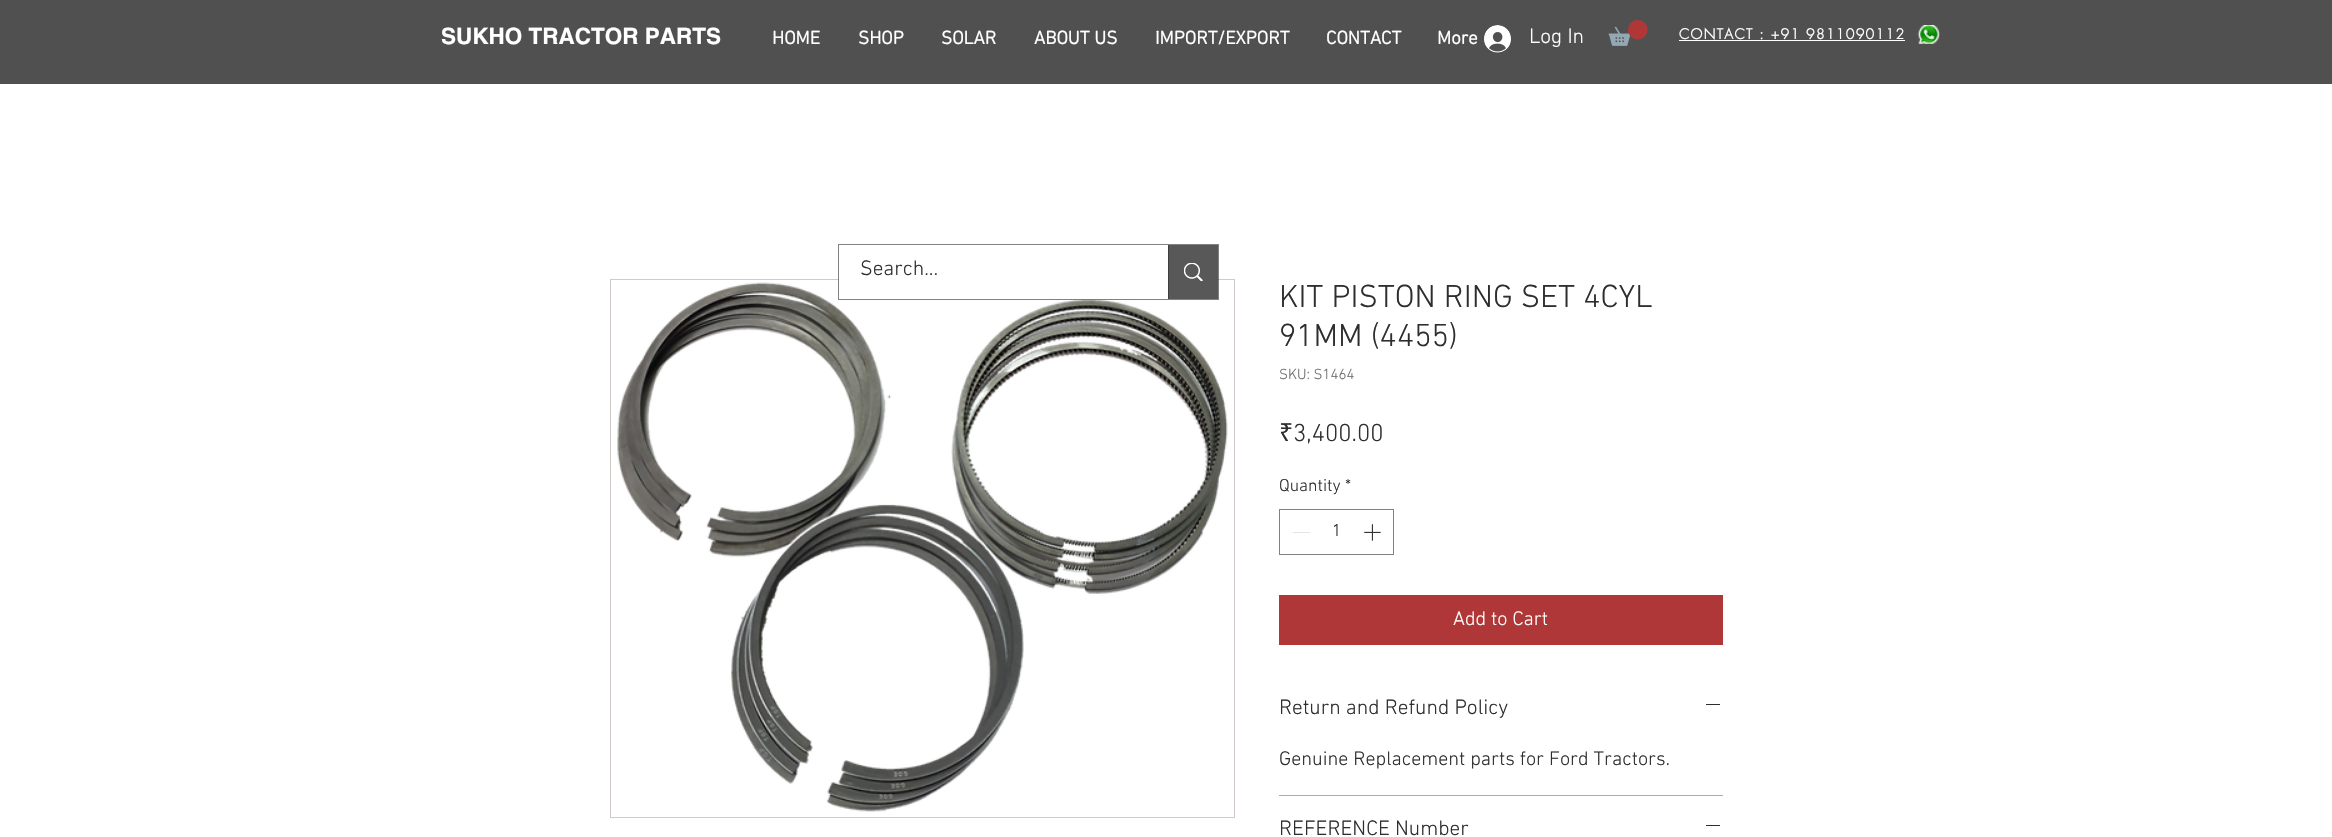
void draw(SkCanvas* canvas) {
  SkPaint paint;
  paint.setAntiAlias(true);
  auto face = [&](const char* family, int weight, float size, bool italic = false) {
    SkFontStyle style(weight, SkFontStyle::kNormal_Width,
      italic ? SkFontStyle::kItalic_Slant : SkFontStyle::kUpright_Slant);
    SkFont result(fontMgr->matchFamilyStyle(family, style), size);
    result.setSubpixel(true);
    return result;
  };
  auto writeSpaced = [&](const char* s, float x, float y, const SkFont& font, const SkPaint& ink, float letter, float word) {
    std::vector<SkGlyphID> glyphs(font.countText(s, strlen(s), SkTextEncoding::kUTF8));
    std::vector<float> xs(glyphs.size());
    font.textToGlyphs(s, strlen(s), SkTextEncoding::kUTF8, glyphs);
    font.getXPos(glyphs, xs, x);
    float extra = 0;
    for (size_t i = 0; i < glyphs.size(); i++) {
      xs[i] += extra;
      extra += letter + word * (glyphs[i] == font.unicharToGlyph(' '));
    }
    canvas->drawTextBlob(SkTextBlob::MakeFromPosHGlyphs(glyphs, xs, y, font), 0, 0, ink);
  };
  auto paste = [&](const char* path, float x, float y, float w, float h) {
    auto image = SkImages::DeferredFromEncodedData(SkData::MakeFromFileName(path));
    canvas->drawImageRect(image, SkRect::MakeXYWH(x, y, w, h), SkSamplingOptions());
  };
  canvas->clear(0xffffffff);
  paint.setColor(0xff505050);
  canvas->drawRect(SkRect::MakeXYWH(0, 0, 2332, 84), paint);
  paste("img/1.png", 1484, 25, 27, 28);
  paste("img/2.png", 1608, 20, 40, 26);
  paint.setColor(0xffffffff);
  canvas->drawRect(SkRect::MakeXYWH(1679, 40, 226, 1), paint);
  paste("img/3.png", 1917, 25, 23, 19);
  paint.setStroke(true);
  paint.setStrokeWidth(1);
  paint.setColor(0xffd1cac9);
  canvas->drawRect(SkRect::MakeXYWH(610.5f, 279.5f, 624, 538), paint);
  paste("img/5.png", 617, 282, 611, 530);
  paint.setColor(0x992f2e2e);
  canvas->drawRect(SkRect::MakeXYWH(838.5f, 244.5f, 380, 55), paint);
  paint.setStroke(false);
  {
    const struct { float x, y, w, h; SkColor color; } items[] = {
      {839, 279, 329, 20, 0xffffffff},
      {1169, 245, 49, 54, 0xff595858},
      {1168, 245, 1, 54, 0xff403f3f},
    };
    for (auto [x, y, w, h, color] : items) {
      paint.setColor(color);
      canvas->drawRect(SkRect::MakeXYWH(x, y, w, h), paint);
    }
  }
  paste("img/4.png", 1184, 263, 19, 18);
  paint.setStroke(true);
  paint.setColor(0xff828282);
  canvas->drawRect(SkRect::MakeXYWH(1279.5f, 509.5f, 114, 45), paint);
  paint.setStroke(false);
  paint.setColor(0xffe3e3e3);
  canvas->drawRect(SkRect::MakeXYWH(1293, 532, 17, 1), paint);
  paste("img/6.png", 1364, 524, 17, 17);
  {
    const struct { float x, y, w, h; SkColor color; } items[] = {
      {1279, 595, 444, 50, 0xffb03737},
      {1279, 795, 444, 1, 0xffb0aaa9},
      {1706, 704, 14, 1, 0xff2f2e2e},
      {1706, 825, 14, 1, 0xff2f2e2e},
    };
    for (auto [x, y, w, h, color] : items) {
      paint.setColor(color);
      canvas->drawRect(SkRect::MakeXYWH(x, y, w, h), paint);
    }
  }
  auto f0 = face("helvetica", 700, 22.5f);
  paint.setColor(0xffffffff);
  canvas->drawString("SUKHO TRACTOR PARTS", 441, 44, f0, paint);
  auto f1 = face("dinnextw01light", 700, 18.75f);
  {
    const struct { const char* s; float x, y; } items[] = {
      {"HOME", 772, 44},
      {"SHOP", 858, 44},
      {"SOLAR", 941, 44},
      {"ABOUT US", 1034, 44},
      {"IMPORT/EXPORT", 1155, 44},
      {"CONTACT", 1326, 44},
      {"More", 1437, 44},
    };
    for (auto [s, x, y] : items) {
      canvas->drawString(s, x, y, f1, paint);
    }
  }
  auto f2 = face("dinnextw01light", 300, 21.25f);
  canvas->drawString("Log In", 1529, 43, f2, paint);
  auto f3 = face("futura", 700, 13.75f);
  writeSpaced("CONTACT : +91 9811090112", 1679, 39, f3, paint, 1.4f, 0);
  paint.setColor(0xff2f2e2e);
  canvas->drawString("Search...", 860, 275, f2, paint);
  auto f4 = face("dinnextw01light", 300, 32.5f);
  canvas->drawString("KIT PISTON RING SET 4CYL", 1279, 307, f4, paint);
  canvas->drawString("91MM (4455)", 1279, 346, f4, paint);
  auto f5 = face("dinnextw01light", 300, 15);
  paint.setColor(0xff6e6968);
  canvas->drawString("SKU: S1464", 1279, 379, f5, paint);
  auto f6 = face("Noto Sans", 400, 25);
  paint.setColor(0xff2f2e2e);
  canvas->drawString("₹", 1279, 441, f6, paint);
  auto f7 = face("dinnextw01light", 300, 25);
  canvas->drawString("3,400.00", 1293, 441, f7, paint);
  auto f8 = face("dinnextw01light", 300, 17.5f);
  {
    const struct { const char* s; float x, y; } items[] = {
      {"Quantity", 1279, 491},
      {"*", 1345, 491},
      {"1", 1332, 536},
    };
    for (auto [s, x, y] : items) {
      canvas->drawString(s, x, y, f8, paint);
    }
  }
  auto f9 = face("dinnextw01light", 300, 20);
  paint.setColor(0xffffffff);
  canvas->drawString("Add to Cart", 1453, 625, f9, paint);
  paint.setColor(0xff2f2e2e);
  canvas->drawString("Return and Refund Policy", 1279, 714, f2, paint);
  canvas->drawString("Genuine Replacement parts for Ford Tractors.", 1279, 765, f9, paint);
  canvas->drawString("REFERENCE Number", 1279, 835, f2, paint);
}
